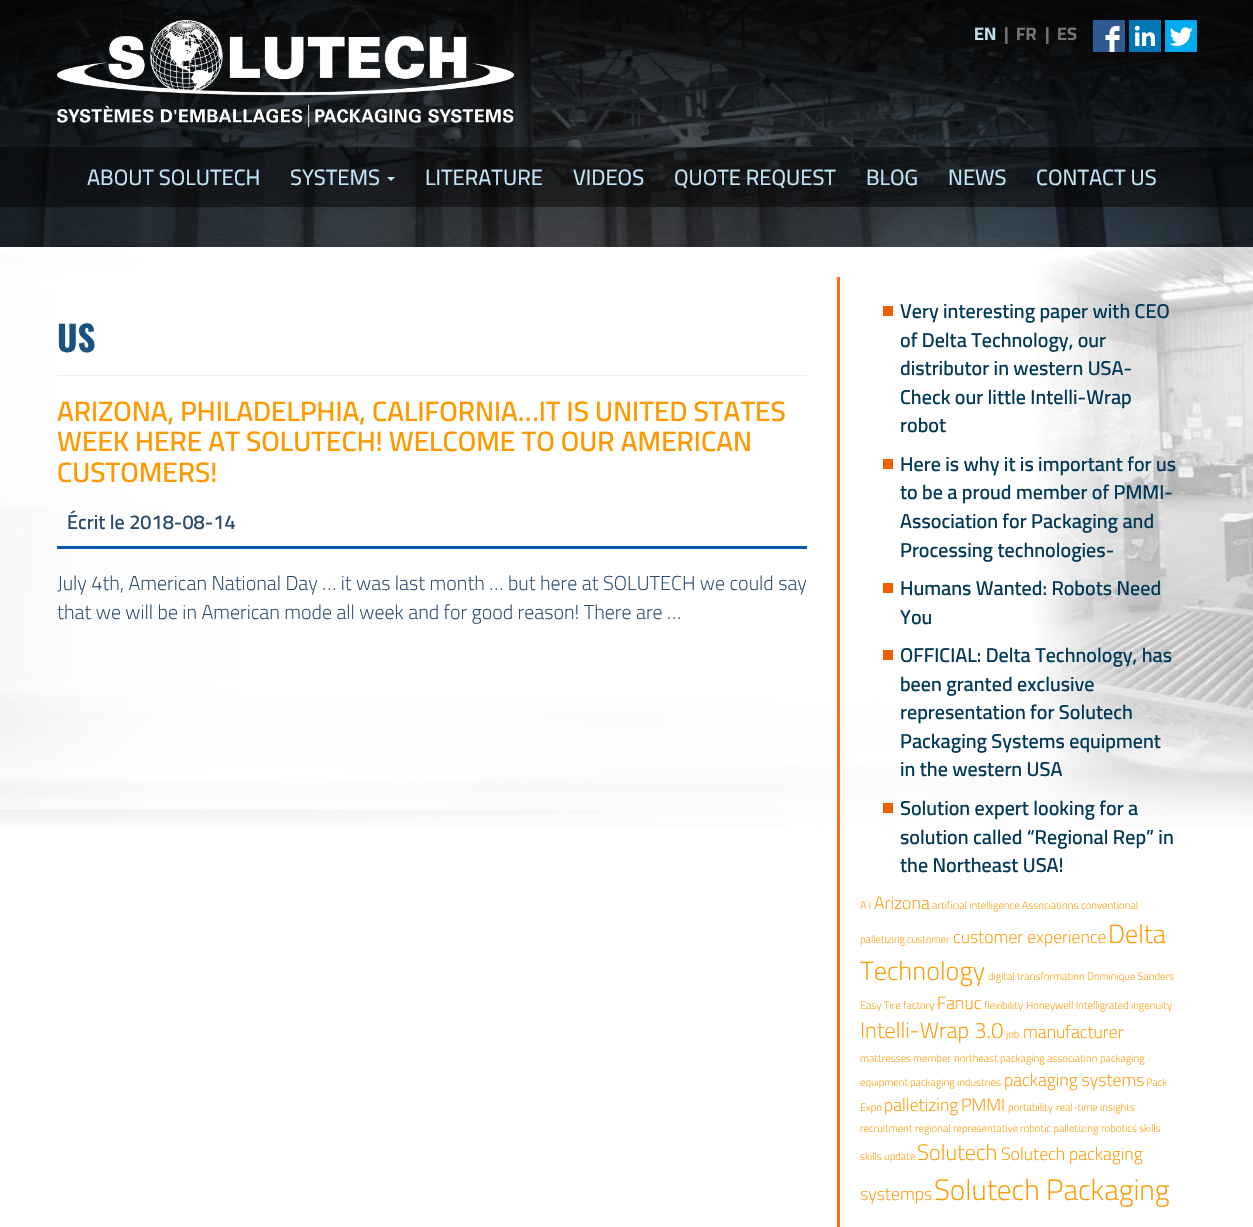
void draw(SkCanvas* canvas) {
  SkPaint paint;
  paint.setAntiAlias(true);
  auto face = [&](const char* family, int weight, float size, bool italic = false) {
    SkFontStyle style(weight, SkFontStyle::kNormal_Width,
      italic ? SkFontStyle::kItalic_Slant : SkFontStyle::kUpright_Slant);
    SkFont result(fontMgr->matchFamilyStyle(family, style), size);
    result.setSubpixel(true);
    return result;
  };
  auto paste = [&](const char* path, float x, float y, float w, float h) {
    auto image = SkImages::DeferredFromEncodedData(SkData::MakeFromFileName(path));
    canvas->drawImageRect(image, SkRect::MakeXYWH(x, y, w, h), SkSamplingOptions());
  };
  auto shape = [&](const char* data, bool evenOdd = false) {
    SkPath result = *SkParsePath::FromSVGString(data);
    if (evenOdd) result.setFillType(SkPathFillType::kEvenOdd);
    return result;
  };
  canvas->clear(0xffffffff);
  paste("img/1.png", 0, 0, 1253, 247);
  paste("img/2.png", 57, 20, 457, 107);
  paste("img/3.png", 1093, 20, 32, 32);
  paste("img/4.png", 1129, 20, 32, 32);
  paste("img/5.png", 1165, 20, 32, 32);
  paint.setColor(0x78000000);
  canvas->drawRect(SkRect::MakeXYWH(0, 147, 1253, 60), paint);
  paint.setColor(0xffc2e6f9);
  canvas->drawPath(shape("M387 177H395L391 181Z"), paint);
  paste("img/6.png", 0, 247, 1253, 580);
  {
    const struct { float x, y, w, h; SkColor color; } items[] = {
      {57, 375, 750, 1, 0xffeeeeee},
      {57, 546, 750, 3, 0xff005aaf},
      {837, 277, 3, 950, 0xffff6b1e},
      {883, 306, 10, 10, 0xfff25e00},
      {883, 459, 10, 10, 0xfff25e00},
      {883, 583, 10, 10, 0xfff25e00},
      {883, 650, 10, 10, 0xfff25e00},
      {883, 803, 10, 10, 0xfff25e00},
    };
    for (auto [x, y, w, h, color] : items) {
      paint.setColor(color);
      canvas->drawRect(SkRect::MakeXYWH(x, y, w, h), paint);
    }
  }
  auto f0 = face("Cairo", 700, 18);
  paint.setColor(0xffbbdef0);
  canvas->drawString("EN", 974, 40, f0, paint);
  paint.setColor(0xff747476);
  {
    const struct { const char* s; float x, y; } items[] = {
      {"|", 1004, 40},
      {"FR", 1016, 40},
      {"|", 1045, 40},
      {"ES", 1057, 40},
    };
    for (auto [s, x, y] : items) {
      canvas->drawString(s, x, y, f0, paint);
    }
  }
  auto f1 = face("Cairo", 400, 22);
  paint.setColor(0xffc2e6f9);
  {
    const struct { const char* s; float x, y; } items[] = {
      {"ABOUT SOLUTECH", 87, 185},
      {"SYSTEMS", 290, 185},
      {"LITERATURE", 425, 185},
      {"VIDEOS", 573, 185},
      {"QUOTE REQUEST", 674, 185},
      {"BLOG", 866, 185},
      {"NEWS", 948, 185},
      {"CONTACT US", 1036, 185},
    };
    for (auto [s, x, y] : items) {
      canvas->drawString(s, x, y, f1, paint);
    }
  }
  auto f2 = face("Oswald", 700, 35);
  paint.setColor(0xff195381);
  canvas->drawString("US", 57, 352, f2, paint);
  auto f3 = face("Cairo", 600, 28);
  paint.setColor(0xffff9900);
  {
    const struct { const char* s; float x, y; } items[] = {
      {"ARIZONA, PHILADELPHIA, CALIFORNIA…IT IS UNITED STATES", 57, 421},
      {"WEEK HERE AT SOLUTECH! WELCOME TO OUR AMERICAN", 57, 451},
      {"CUSTOMERS!", 57, 482},
    };
    for (auto [s, x, y] : items) {
      canvas->drawString(s, x, y, f3, paint);
    }
  }
  auto f4 = face("Cairo", 600, 20);
  paint.setColor(0xff284a6c);
  canvas->drawString("Écrit le 2018-08-14", 67, 529, f4, paint);
  auto f5 = face("Cairo", 300, 20);
  canvas->drawString("July 4th, American National Day … it was last month … but here at SOLUTECH we could say", 57, 590, f5, paint);
  canvas->drawString("that we will be in American mode all week and for good reason! There are …", 57, 619, f5, paint);
  paint.setColor(0xff003958);
  {
    const struct { const char* s; float x, y; } items[] = {
      {"Very interesting paper with CEO", 900, 318},
      {"of Delta Technology, our", 900, 347},
      {"distributor in western USA-", 900, 375},
      {"Check our little Intelli-Wrap", 900, 404},
      {"robot", 900, 432},
      {"Here is why it is important for us", 900, 471},
      {"to be a proud member of PMMI-", 900, 499},
      {"Association for Packaging and", 900, 528},
      {"Processing technologies-", 900, 557},
      {"Humans Wanted: Robots Need", 900, 595},
      {"You", 900, 624},
      {"OFFICIAL: Delta Technology, has", 900, 662},
      {"been granted exclusive", 900, 691},
      {"representation for Solutech", 900, 719},
      {"Packaging Systems equipment", 900, 748},
      {"in the western USA", 900, 776},
      {"Solution expert looking for a", 900, 815},
      {"solution called “Regional Rep” in", 900, 844},
      {"the Northeast USA!", 900, 872},
    };
    for (auto [s, x, y] : items) {
      canvas->drawString(s, x, y, f4, paint);
    }
  }
  auto f6 = face("Cairo", 300, 10.75f);
  paint.setColor(0xffff9900);
  canvas->drawString("A I", 860, 909, f6, paint);
  auto f7 = face("Cairo", 300, 17.75f);
  canvas->drawString("Arizona", 874, 909, f7, paint);
  {
    const struct { const char* s; float x, y; } items[] = {
      {"artificial intelligence", 932, 909},
      {"Associations", 1022, 909},
      {"conventional", 1081, 909},
      {"palletizing", 860, 943},
      {"customer", 907, 943},
    };
    for (auto [s, x, y] : items) {
      canvas->drawString(s, x, y, f6, paint);
    }
  }
  canvas->drawString("customer experience", 953, 943, f7, paint);
  auto f8 = face("Cairo", 300, 26.25f);
  canvas->drawString("Delta", 1108, 943, f8, paint);
  canvas->drawString("Technology", 860, 980, f8, paint);
  {
    const struct { const char* s; float x, y; } items[] = {
      {"digital transformation", 988, 980},
      {"Dominique Sanders", 1087, 980},
      {"Easy Tire", 860, 1009},
      {"factory", 903, 1009},
    };
    for (auto [s, x, y] : items) {
      canvas->drawString(s, x, y, f6, paint);
    }
  }
  canvas->drawString("Fanuc", 937, 1009, f7, paint);
  {
    const struct { const char* s; float x, y; } items[] = {
      {"flexibility", 984, 1009},
      {"Honeywell Intelligrated", 1026, 1009},
      {"ingenuity", 1131, 1009},
    };
    for (auto [s, x, y] : items) {
      canvas->drawString(s, x, y, f6, paint);
    }
  }
  auto f9 = face("Cairo", 300, 22.25f);
  canvas->drawString("Intelli-Wrap 3.0", 860, 1038, f9, paint);
  canvas->drawString("job", 1006, 1038, f6, paint);
  canvas->drawString("manufacturer", 1023, 1038, f7, paint);
  {
    const struct { const char* s; float x, y; } items[] = {
      {"mattresses", 860, 1062},
      {"member", 913, 1062},
      {"northeast", 954, 1062},
      {"packaging association", 1000, 1062},
      {"packaging", 1100, 1062},
      {"equipment", 860, 1086},
      {"packaging industries", 910, 1086},
    };
    for (auto [s, x, y] : items) {
      canvas->drawString(s, x, y, f6, paint);
    }
  }
  canvas->drawString("packaging systems", 1004, 1086, f7, paint);
  canvas->drawString("Pack", 1146, 1086, f6, paint);
  canvas->drawString("Expo", 860, 1111, f6, paint);
  canvas->drawString("palletizing", 884, 1111, f7, paint);
  canvas->drawString("PMMI", 961, 1111, f7, paint);
  {
    const struct { const char* s; float x, y; } items[] = {
      {"portability", 1008, 1111},
      {"real-time insights", 1056, 1111},
      {"recruitment", 860, 1132},
      {"regional representative", 915, 1132},
      {"robotic palletizing", 1020, 1132},
      {"robotics", 1101, 1132},
      {"skills", 1139, 1132},
      {"skills update", 860, 1160},
    };
    for (auto [s, x, y] : items) {
      canvas->drawString(s, x, y, f6, paint);
    }
  }
  canvas->drawString("Solutech", 917, 1160, f9, paint);
  canvas->drawString("Solutech packaging", 1001, 1160, f7, paint);
  canvas->drawString("systemps", 860, 1200, f7, paint);
  auto f10 = face("Cairo", 300, 29.25f);
  canvas->drawString("Solutech Packaging", 934, 1200, f10, paint);
}
